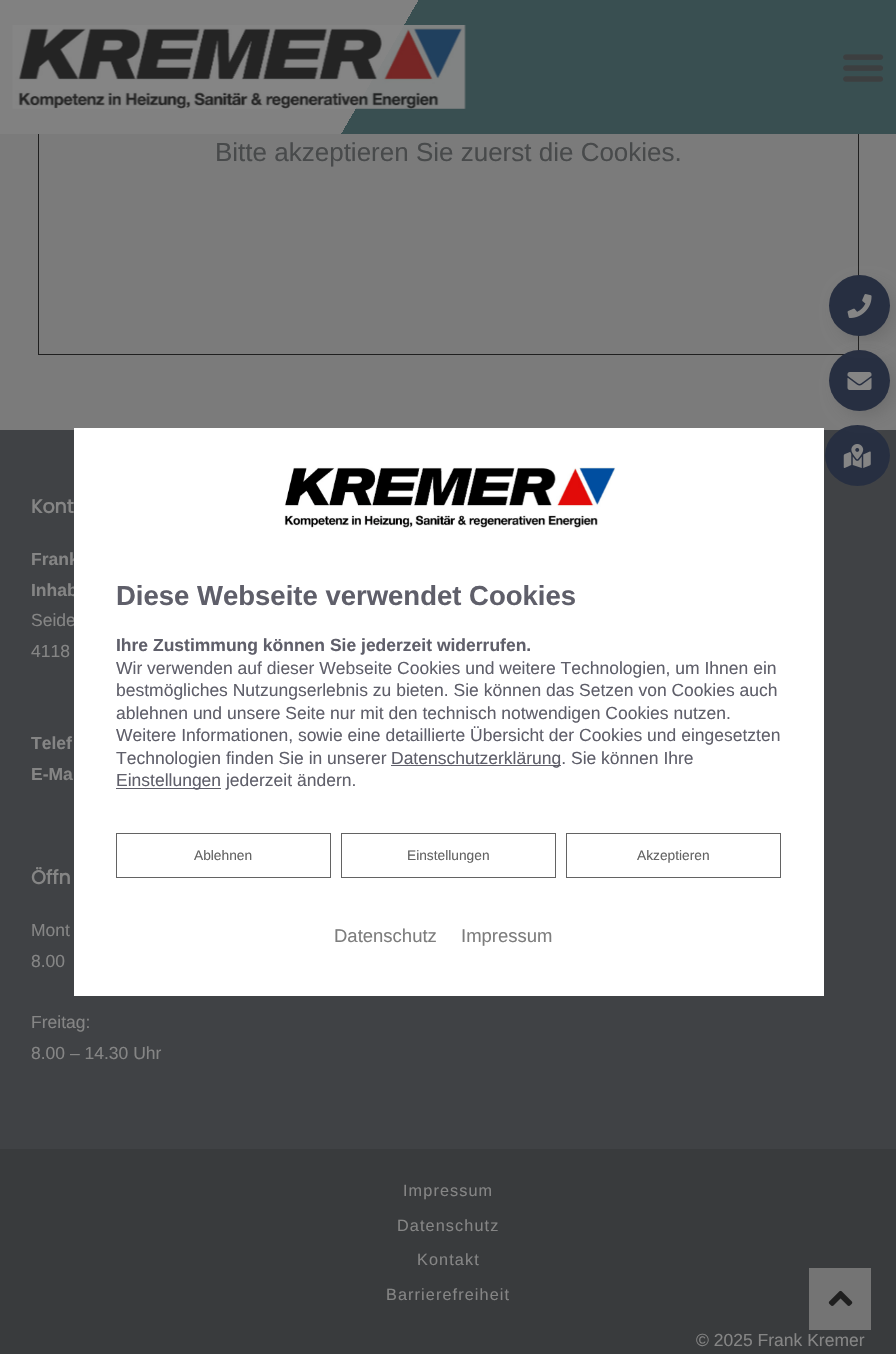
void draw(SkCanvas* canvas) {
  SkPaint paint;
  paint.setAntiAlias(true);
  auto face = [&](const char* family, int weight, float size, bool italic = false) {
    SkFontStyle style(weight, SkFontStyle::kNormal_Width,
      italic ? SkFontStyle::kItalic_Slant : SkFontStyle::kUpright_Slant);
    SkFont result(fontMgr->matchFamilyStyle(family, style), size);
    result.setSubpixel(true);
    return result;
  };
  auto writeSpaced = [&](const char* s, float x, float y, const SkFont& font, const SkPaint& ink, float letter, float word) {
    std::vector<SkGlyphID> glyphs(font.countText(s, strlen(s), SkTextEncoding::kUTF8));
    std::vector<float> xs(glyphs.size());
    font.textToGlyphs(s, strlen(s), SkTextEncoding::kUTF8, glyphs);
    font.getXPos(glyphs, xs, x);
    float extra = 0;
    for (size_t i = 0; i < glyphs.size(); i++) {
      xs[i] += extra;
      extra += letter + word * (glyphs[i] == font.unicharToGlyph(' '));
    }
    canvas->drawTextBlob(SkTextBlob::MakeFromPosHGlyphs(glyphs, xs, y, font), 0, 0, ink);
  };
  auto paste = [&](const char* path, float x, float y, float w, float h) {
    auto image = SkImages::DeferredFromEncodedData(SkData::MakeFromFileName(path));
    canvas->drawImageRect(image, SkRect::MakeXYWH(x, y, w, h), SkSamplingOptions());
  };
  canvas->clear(0xff7b7b7b);
  paint.setStroke(true);
  paint.setStrokeWidth(1);
  paint.setColor(0xff1f1f1f);
  canvas->drawRect(SkRect::MakeXYWH(38.5f, 18.5f, 820, 336), paint);
  paste("img/6.png", 425, 44, 50, 50);
  paint.setStroke(false);
  paint.setColor(0xf22f3233);
  canvas->drawRect(SkRect::MakeXYWH(0, 0, 896, 134), paint);
  {
    const SkColor colors[] = {0xf2858585, 0xf2395052};
    const float stops[] = {0.43f, 0.43f};
    const SkPoint ends[] = {{83, -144}, {813, 278}};
    paint.setShader(SkGradientShader::MakeLinear(ends, colors, stops, 2, SkTileMode::kClamp));
    paint.setAlpha(255);
  }
  canvas->drawRect(SkRect::MakeXYWH(0, 0, 896, 134), paint);
  paste("img/1.png", 12, 25, 454, 84);
  paste("img/2.png", 843, 54, 41, 28);
  paint.setShader(nullptr);
  paint.setColor(0xff404245);
  canvas->drawRect(SkRect::MakeXYWH(0, 430, 896, 719), paint);
  paint.setColor(0xff272f41);
  canvas->drawOval(SkRect::MakeXYWH(825, 425, 65, 61), paint);
  paint.setColor(0x63444444);
  paint.setMaskFilter(SkMaskFilter::MakeBlur(kNormal_SkBlurStyle, 9.5f));
  canvas->drawRoundRect(SkRect::MakeXYWH(841, 363, 49, 48), 24, 24, paint);
  paint.setMaskFilter(nullptr);
  paint.setColor(0xff272f41);
  canvas->drawCircle(859.5f, 380.5f, 30.5f, paint);
  paint.setColor(0x63444444);
  paint.setMaskFilter(SkMaskFilter::MakeBlur(kNormal_SkBlurStyle, 9.5f));
  canvas->drawRoundRect(SkRect::MakeXYWH(841, 288, 49, 48), 24, 24, paint);
  paint.setMaskFilter(nullptr);
  paint.setColor(0xff272f41);
  canvas->drawCircle(859.5f, 305.5f, 30.5f, paint);
  paste("img/3.png", 847, 294, 25, 24);
  paste("img/4.png", 847, 372, 25, 18);
  paste("img/5.png", 843, 444, 28, 24);
  paint.setColor(0xff393b3d);
  canvas->drawRect(SkRect::MakeXYWH(0, 1149, 896, 205), paint);
  paint.setColor(0xff747474);
  canvas->drawRect(SkRect::MakeXYWH(809, 1268, 62, 62), paint);
  paste("img/8.png", 828, 1290, 25, 16);
  auto f0 = face("Liberation Sans", 400, 26);
  paint.setColor(0xff484a4b);
  canvas->drawString("Bitte akzeptieren Sie zuerst die Cookies.", 215, 161, f0, paint);
  auto f1 = face("Poppins", 700, 19);
  paint.setColor(0xff858585);
  canvas->drawString("Kont", 31, 513, f1, paint);
  auto f2 = face("Liberation Sans", 700, 17.5f);
  canvas->drawString("Frank", 31, 565, f2, paint);
  canvas->drawString("Inhab", 31, 596, f2, paint);
  auto f3 = face("Liberation Sans", 400, 17.5f);
  canvas->drawString("Seide", 31, 626, f3, paint);
  canvas->drawString("4118", 31, 657, f3, paint);
  canvas->drawString("Telef", 31, 749, f2, paint);
  canvas->drawString("E-Ma", 31, 780, f2, paint);
  canvas->drawString("Öffn", 31, 884, f1, paint);
  {
    const struct { const char* s; float x, y; } items[] = {
      {"Mont", 31, 936},
      {"8.00", 31, 967},
      {"Freitag:", 31, 1028},
      {"8.00 – 14.30 Uhr", 31, 1059},
    };
    for (auto [s, x, y] : items) {
      canvas->drawString(s, x, y, f3, paint);
    }
  }
  auto f4 = face("Liberation Sans", 400, 16.25f);
  {
    const struct { const char* s; float x, y; } items[] = {
      {"Impressum", 403, 1196},
      {"Datenschutz", 397, 1231},
      {"Kontakt", 417, 1265},
      {"Barrierefreiheit", 386, 1300},
    };
    for (auto [s, x, y] : items) {
      writeSpaced(s, x, y, f4, paint, 1.1f, 0);
    }
  }
  canvas->drawString("© 2025 Frank Kremer", 696, 1346, f3, paint);
  paint.setColor(0xffffffff);
  canvas->drawRect(SkRect::MakeXYWH(74, 428, 750, 568), paint);
  paste("img/7.png", 284, 467, 332, 61);
  auto f5 = face("Liberation Sans", 700, 27.5f);
  paint.setColor(0xff5f5f6a);
  canvas->drawString("Diese Webseite verwendet Cookies", 116, 605, f5, paint);
  canvas->drawString("Ihre Zustimmung können Sie jederzeit widerrufen.", 116, 651, f2, paint);
  {
    const struct { const char* s; float x, y; } items[] = {
      {"Wir verwenden auf dieser Webseite Cookies und weitere Technologien, um Ihnen ein", 116, 674},
      {"bestmögliches Nutzungserlebnis zu bieten. Sie können das Setzen von Cookies auch", 116, 696},
      {"ablehnen und unsere Seite nur mit den technisch notwendigen Cookies nutzen.", 116, 719},
      {"Weitere Informationen, sowie eine detaillierte Übersicht der Cookies und eingesetzten", 116, 741},
      {"Technologien finden Sie in unserer", 116, 764},
    };
    for (auto [s, x, y] : items) {
      canvas->drawString(s, x, y, f3, paint);
    }
  }
  canvas->drawRect(SkRect::MakeXYWH(391, 765, 170, 1), paint);
  canvas->drawString("Datenschutzerklärung. Sie können Ihre", 391, 764, f3, paint);
  canvas->drawRect(SkRect::MakeXYWH(116, 788, 105, 1), paint);
  canvas->drawString("Einstellungen jederzeit ändern.", 116, 786, f3, paint);
  paint.setStroke(true);
  paint.setColor(0xff636363);
  canvas->drawRect(SkRect::MakeXYWH(116.5f, 833.5f, 214, 44), paint);
  auto f6 = face("Liberation Sans", 400, 13.75f);
  paint.setStroke(false);
  canvas->drawString("Ablehnen", 194, 860, f6, paint);
  paint.setStroke(true);
  canvas->drawRect(SkRect::MakeXYWH(341.5f, 833.5f, 214, 44), paint);
  paint.setStroke(false);
  canvas->drawString("Einstellungen", 407, 860, f6, paint);
  paint.setStroke(true);
  canvas->drawRect(SkRect::MakeXYWH(566.5f, 833.5f, 214, 44), paint);
  paint.setStroke(false);
  canvas->drawString("Akzeptieren", 637, 860, f6, paint);
  auto f7 = face("Liberation Sans", 400, 18.5f);
  paint.setColor(0xff7d7d7d);
  canvas->drawString("Datenschutz", 334, 942, f7, paint);
  canvas->drawString("Impressum", 461, 942, f7, paint);
}
